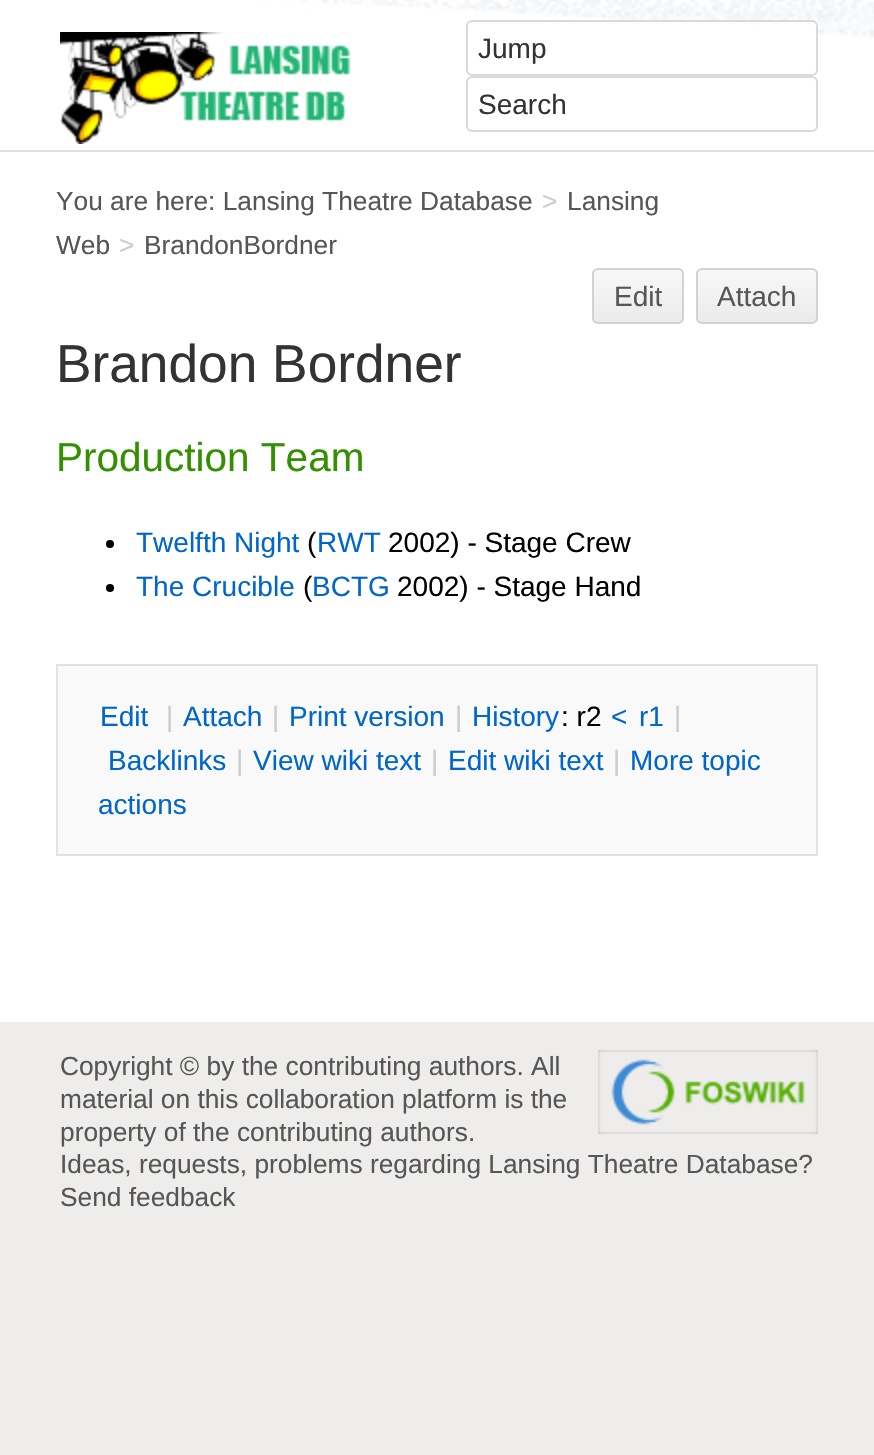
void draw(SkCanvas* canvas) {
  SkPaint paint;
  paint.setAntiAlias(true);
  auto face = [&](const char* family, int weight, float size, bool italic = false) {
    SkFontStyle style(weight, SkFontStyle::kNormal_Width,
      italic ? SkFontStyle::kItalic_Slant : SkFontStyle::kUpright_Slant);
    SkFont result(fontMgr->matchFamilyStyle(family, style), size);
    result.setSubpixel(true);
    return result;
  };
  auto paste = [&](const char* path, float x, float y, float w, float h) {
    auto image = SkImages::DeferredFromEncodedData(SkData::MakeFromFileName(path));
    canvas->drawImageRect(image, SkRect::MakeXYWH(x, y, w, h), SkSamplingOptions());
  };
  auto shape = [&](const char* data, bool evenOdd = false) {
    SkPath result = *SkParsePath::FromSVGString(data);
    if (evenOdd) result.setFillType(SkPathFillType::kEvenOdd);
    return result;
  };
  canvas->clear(0xffeeedec);
  paint.setColor(0xffdfdfdf);
  canvas->drawRect(SkRect::MakeXYWH(0, 150, 874, 2), paint);
  paint.setColor(0xffffffff);
  canvas->drawRect(SkRect::MakeXYWH(0, 0, 874, 150), paint);
  paste("img/1.png", 260, 0, 614, 38);
  paste("img/2.png", 60, 32, 291, 112);
  canvas->drawRoundRect(SkRect::MakeXYWH(467, 21, 350, 54), 5, 5, paint);
  paint.setStroke(true);
  paint.setStrokeWidth(2);
  paint.setColor(0xffdadada);
  canvas->drawRoundRect(SkRect::MakeXYWH(467, 21, 350, 54), 5, 5, paint);
  canvas->drawRoundRect(SkRect::MakeXYWH(467, 77, 350, 54), 5, 5, paint);
  paint.setStroke(false);
  paint.setColor(0xffffffff);
  canvas->drawRect(SkRect::MakeXYWH(0, 152, 874, 870), paint);
  canvas->save();
  canvas->clipPath(shape("M598 268H678C681.5 268 684 270.5 684 274V318C684 321.5 681.5 324 678 324H598C594.5 324 592 321.5 592 318V274C592 270.5 594.5 268 598 268Z"), true);
  {
    const SkColor colors[] = {0xfff8f8f8, 0xffebebeb};
    const float stops[] = {0, 1};
    const SkPoint ends[] = {{638, 270}, {638, 322}};
    paint.setShader(SkGradientShader::MakeLinear(ends, colors, stops, 2, SkTileMode::kClamp));
    paint.setAlpha(255);
  }
  canvas->drawRect(SkRect::MakeXYWH(592, 270, 92, 52), paint);
  canvas->restore();
  paint.setStroke(true);
  paint.setShader(nullptr);
  paint.setColor(0xffd2d2d2);
  canvas->drawRoundRect(SkRect::MakeXYWH(593, 269, 90, 54), 5, 5, paint);
  canvas->save();
  canvas->clipPath(shape("M702 268H812C815.5 268 818 270.5 818 274V318C818 321.5 815.5 324 812 324H702C698.5 324 696 321.5 696 318V274C696 270.5 698.5 268 702 268Z"), true);
  paint.setStroke(false);
  {
    const SkColor colors[] = {0xfff8f8f8, 0xffebebeb};
    const float stops[] = {0, 1};
    const SkPoint ends[] = {{757, 270}, {757, 322}};
    paint.setShader(SkGradientShader::MakeLinear(ends, colors, stops, 2, SkTileMode::kClamp));
    paint.setAlpha(255);
  }
  canvas->drawRect(SkRect::MakeXYWH(696, 270, 122, 52), paint);
  canvas->restore();
  paint.setStroke(true);
  paint.setShader(nullptr);
  paint.setColor(0xffd2d2d2);
  canvas->drawRoundRect(SkRect::MakeXYWH(697, 269, 120, 54), 5, 5, paint);
  paint.setStroke(false);
  paint.setColor(0xff000000);
  canvas->drawCircle(110, 544, 4, paint);
  canvas->drawCircle(110, 588, 4, paint);
  paint.setColor(0xfff9f9fa);
  canvas->drawRect(SkRect::MakeXYWH(57, 665, 760, 190), paint);
  paint.setStroke(true);
  paint.setColor(0xffe2e2e2);
  canvas->drawRect(SkRect::MakeXYWH(57, 665, 760, 190), paint);
  paste("img/3.png", 598, 1050, 220, 84);
  auto f0 = face("Liberation Sans", 400, 28);
  paint.setStroke(false);
  paint.setColor(0xff333333);
  canvas->drawString("Jump", 478, 58, f0, paint);
  canvas->drawString("Search", 478, 114, f0, paint);
  auto f1 = face("Liberation Sans", 400, 26.3f);
  paint.setColor(0xff565656);
  canvas->drawString("You are here: Lansing Theatre Database", 56, 210, f1, paint);
  paint.setColor(0xffcccccc);
  canvas->drawString(">", 542, 210, f1, paint);
  paint.setColor(0xff565656);
  canvas->drawString("Lansing", 567, 210, f1, paint);
  canvas->drawString("Web", 56, 254, f1, paint);
  paint.setColor(0xffcccccc);
  canvas->drawString(">", 119, 254, f1, paint);
  paint.setColor(0xff565656);
  canvas->drawString("BrandonBordner", 144, 254, f1, paint);
  canvas->drawString("Edit", 614, 306, f0, paint);
  canvas->drawString("Attach", 717, 306, f0, paint);
  auto f2 = face("Liberation Sans", 400, 53.25f);
  paint.setColor(0xff333333);
  canvas->drawString("Brandon Bordner", 56, 382, f2, paint);
  auto f3 = face("Liberation Sans", 400, 40.5f);
  paint.setColor(0xff339000);
  canvas->drawString("Production Team", 56, 471, f3, paint);
  paint.setColor(0xff0066cc);
  canvas->drawString("Twelfth Night", 136, 552, f0, paint);
  paint.setColor(0xff000000);
  canvas->drawString("(", 307, 552, f0, paint);
  paint.setColor(0xff0066cc);
  canvas->drawString("RWT", 317, 552, f0, paint);
  paint.setColor(0xff000000);
  canvas->drawString("2002) - Stage Crew", 388, 552, f0, paint);
  paint.setColor(0xff0066cc);
  canvas->drawString("The Crucible", 136, 596, f0, paint);
  paint.setColor(0xff000000);
  canvas->drawString("(", 303, 596, f0, paint);
  paint.setColor(0xff0066cc);
  canvas->drawString("BCTG", 312, 596, f0, paint);
  paint.setColor(0xff000000);
  canvas->drawString("2002) - Stage Hand", 397, 596, f0, paint);
  paint.setColor(0xff0066cc);
  canvas->drawString("Edit", 100, 726, f0, paint);
  paint.setColor(0xffcccccc);
  canvas->drawString("|", 166, 726, f0, paint);
  paint.setColor(0xff0066cc);
  canvas->drawString("Attach", 183, 726, f0, paint);
  paint.setColor(0xffcccccc);
  canvas->drawString("|", 272, 726, f0, paint);
  paint.setColor(0xff0066cc);
  canvas->drawString("Print version", 289, 726, f0, paint);
  paint.setColor(0xffcccccc);
  canvas->drawString("|", 455, 726, f0, paint);
  paint.setColor(0xff0066cc);
  canvas->drawString("History", 472, 726, f0, paint);
  paint.setColor(0xff000000);
  canvas->drawString(": r2", 561, 726, f0, paint);
  paint.setColor(0xff0066cc);
  canvas->drawString("<", 611, 726, f0, paint);
  canvas->drawString("r1", 639, 726, f0, paint);
  paint.setColor(0xffcccccc);
  canvas->drawString("|", 674, 726, f0, paint);
  paint.setColor(0xff0066cc);
  canvas->drawString("Backlinks", 108, 770, f0, paint);
  paint.setColor(0xffcccccc);
  canvas->drawString("|", 236, 770, f0, paint);
  paint.setColor(0xff0066cc);
  canvas->drawString("View wiki text", 253, 770, f0, paint);
  paint.setColor(0xffcccccc);
  canvas->drawString("|", 431, 770, f0, paint);
  paint.setColor(0xff0066cc);
  canvas->drawString("Edit wiki text", 448, 770, f0, paint);
  paint.setColor(0xffcccccc);
  canvas->drawString("|", 613, 770, f0, paint);
  paint.setColor(0xff0066cc);
  canvas->drawString("More topic", 630, 770, f0, paint);
  canvas->drawString("actions", 98, 814, f0, paint);
  paint.setColor(0xff565656);
  {
    const struct { const char* s; float x, y; } items[] = {
      {"Copyright © by the contributing authors. All", 60, 1075},
      {"material on this collaboration platform is the", 60, 1108},
      {"property of the contributing authors.", 60, 1141},
      {"Ideas, requests, problems regarding Lansing Theatre Database?", 60, 1173},
      {"Send feedback", 60, 1206},
    };
    for (auto [s, x, y] : items) {
      canvas->drawString(s, x, y, f1, paint);
    }
  }
}
